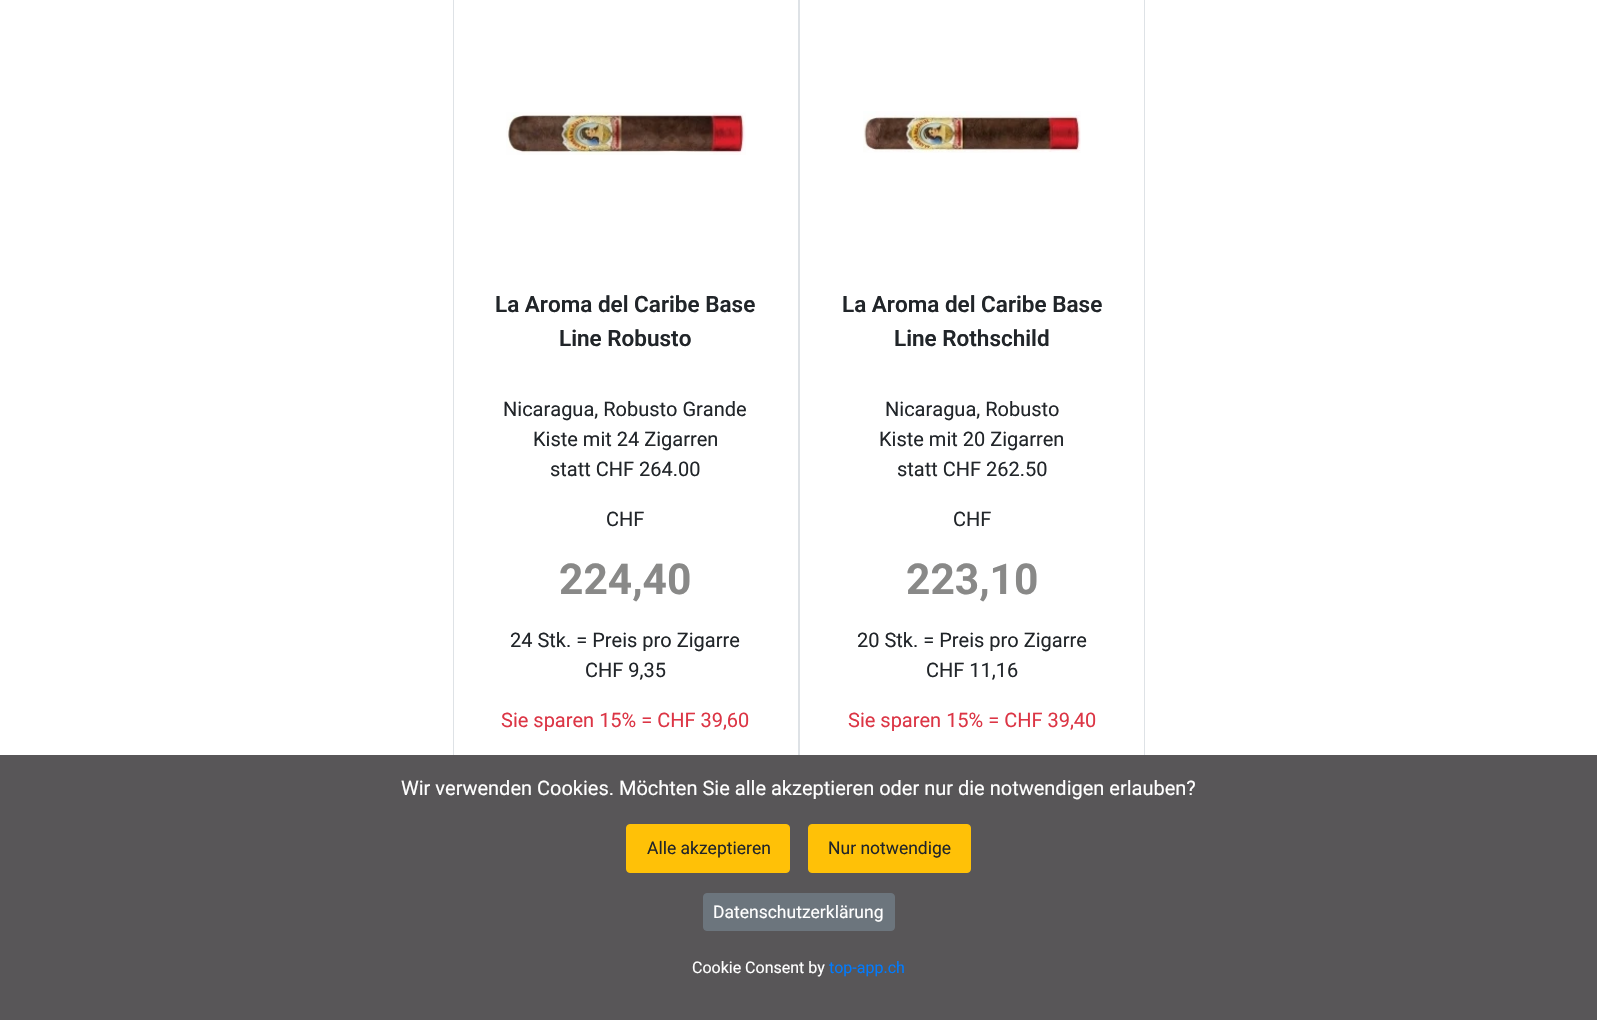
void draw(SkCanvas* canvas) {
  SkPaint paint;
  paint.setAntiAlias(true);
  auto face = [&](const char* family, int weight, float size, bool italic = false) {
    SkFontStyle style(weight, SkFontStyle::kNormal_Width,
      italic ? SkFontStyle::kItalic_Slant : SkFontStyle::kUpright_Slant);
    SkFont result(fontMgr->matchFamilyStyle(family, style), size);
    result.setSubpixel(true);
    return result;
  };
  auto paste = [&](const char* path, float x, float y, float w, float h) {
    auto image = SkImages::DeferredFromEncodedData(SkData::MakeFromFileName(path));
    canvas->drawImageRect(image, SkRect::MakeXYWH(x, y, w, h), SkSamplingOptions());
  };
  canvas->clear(0xffffffff);
  paint.setStroke(true);
  paint.setStrokeWidth(1);
  paint.setColor(0xffdee2e6);
  canvas->drawRect(SkRect::MakeXYWH(453.5f, -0.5f, 345, 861), paint);
  paste("img/1.png", 506, 112, 240, 43);
  canvas->drawRect(SkRect::MakeXYWH(799.5f, -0.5f, 345, 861), paint);
  paste("img/2.png", 863, 111, 218, 42);
  paint.setStroke(false);
  paint.setColor(0xff585658);
  canvas->drawRect(SkRect::MakeXYWH(0, 755, 1597, 265), paint);
  paint.setColor(0xffffc107);
  canvas->drawRoundRect(SkRect::MakeXYWH(626.5f, 824.5f, 163, 48), 3.5f, 3.5f, paint);
  paint.setStroke(true);
  canvas->drawRoundRect(SkRect::MakeXYWH(626.5f, 824.5f, 163, 48), 3.5f, 3.5f, paint);
  paint.setStroke(false);
  canvas->drawRoundRect(SkRect::MakeXYWH(808.5f, 824.5f, 162, 48), 3.5f, 3.5f, paint);
  paint.setStroke(true);
  canvas->drawRoundRect(SkRect::MakeXYWH(808.5f, 824.5f, 162, 48), 3.5f, 3.5f, paint);
  paint.setStroke(false);
  paint.setColor(0xff6c757d);
  canvas->drawRoundRect(SkRect::MakeXYWH(703.5f, 893.5f, 191, 37), 3.5f, 3.5f, paint);
  paint.setStroke(true);
  canvas->drawRoundRect(SkRect::MakeXYWH(703.5f, 893.5f, 191, 37), 3.5f, 3.5f, paint);
  auto f0 = face("Roboto", 600, 22.5f);
  paint.setStroke(false);
  paint.setColor(0xff212529);
  canvas->drawString("La Aroma del Caribe Base", 495, 312, f0, paint);
  canvas->drawString("Line Robusto", 559, 346, f0, paint);
  auto f1 = face("Roboto", 400, 20);
  {
    const struct { const char* s; float x, y; } items[] = {
      {"Nicaragua, Robusto Grande", 503, 416},
      {"Kiste mit 24 Zigarren", 533, 446},
      {"statt CHF 264.00", 550, 476},
      {"CHF", 606, 526},
    };
    for (auto [s, x, y] : items) {
      canvas->drawString(s, x, y, f1, paint);
    }
  }
  auto f2 = face("Roboto", 700, 42.5f);
  paint.setColor(0xff898988);
  canvas->drawString("224,40", 559, 594, f2, paint);
  paint.setColor(0xff212529);
  canvas->drawString("24 Stk. = Preis pro Zigarre", 510, 647, f1, paint);
  canvas->drawString("CHF 9,35", 585, 677, f1, paint);
  paint.setColor(0xffdc3545);
  canvas->drawString("Sie sparen 15% = CHF 39,60", 501, 727, f1, paint);
  paint.setColor(0xff212529);
  canvas->drawString("La Aroma del Caribe Base", 842, 312, f0, paint);
  canvas->drawString("Line Rothschild", 894, 346, f0, paint);
  {
    const struct { const char* s; float x, y; } items[] = {
      {"Nicaragua, Robusto", 885, 416},
      {"Kiste mit 20 Zigarren", 879, 446},
      {"statt CHF 262.50", 897, 476},
      {"CHF", 953, 526},
    };
    for (auto [s, x, y] : items) {
      canvas->drawString(s, x, y, f1, paint);
    }
  }
  paint.setColor(0xff898988);
  canvas->drawString("223,10", 906, 594, f2, paint);
  paint.setColor(0xff212529);
  canvas->drawString("20 Stk. = Preis pro Zigarre", 857, 647, f1, paint);
  canvas->drawString("CHF 11,16", 926, 677, f1, paint);
  paint.setColor(0xffdc3545);
  canvas->drawString("Sie sparen 15% = CHF 39,40", 848, 727, f1, paint);
  paint.setColor(0xffffffff);
  canvas->drawString("Wir verwenden Cookies. Möchten Sie alle akzeptieren oder nur die notwendigen erlauben?", 401, 795, f1, paint);
  auto f3 = face("Roboto", 400, 17.5f);
  paint.setColor(0xff212529);
  canvas->drawString("Alle akzeptieren", 647, 854, f3, paint);
  canvas->drawString("Nur notwendige", 828, 854, f3, paint);
  paint.setColor(0xffffffff);
  canvas->drawString("Datenschutzerklärung", 713, 918, f3, paint);
  auto f4 = face("Roboto", 400, 16);
  canvas->drawString("Cookie Consent by", 692, 973, f4, paint);
  paint.setColor(0xff007bff);
  canvas->drawString("top-app.ch", 829, 973, f4, paint);
}
